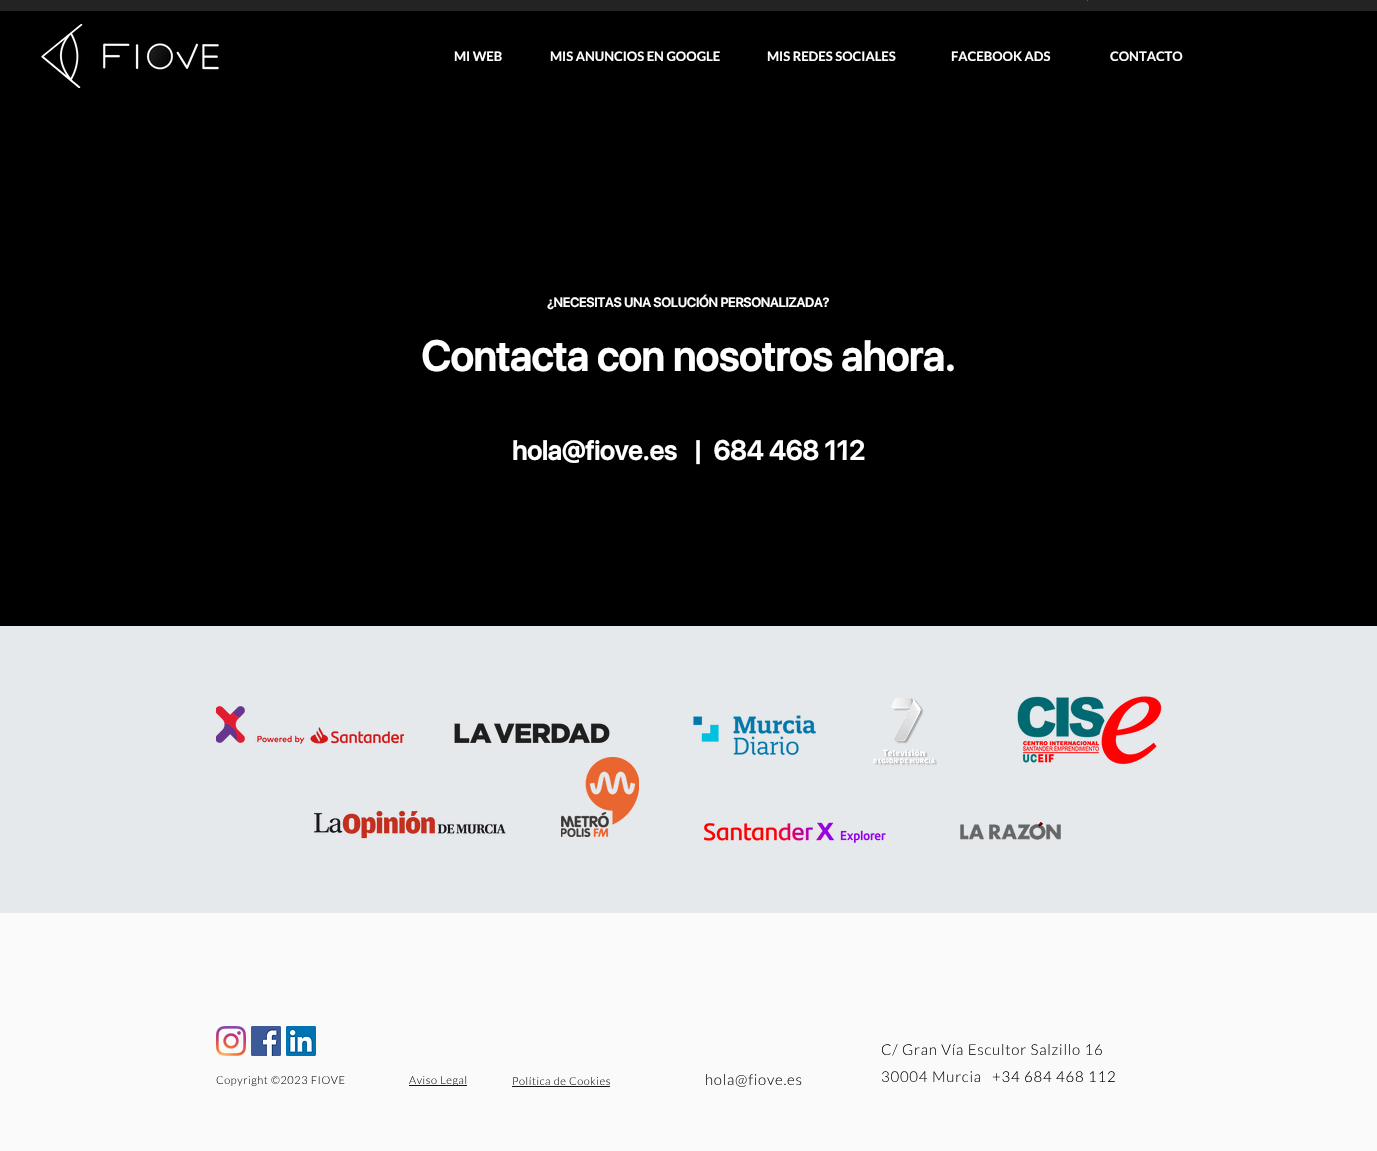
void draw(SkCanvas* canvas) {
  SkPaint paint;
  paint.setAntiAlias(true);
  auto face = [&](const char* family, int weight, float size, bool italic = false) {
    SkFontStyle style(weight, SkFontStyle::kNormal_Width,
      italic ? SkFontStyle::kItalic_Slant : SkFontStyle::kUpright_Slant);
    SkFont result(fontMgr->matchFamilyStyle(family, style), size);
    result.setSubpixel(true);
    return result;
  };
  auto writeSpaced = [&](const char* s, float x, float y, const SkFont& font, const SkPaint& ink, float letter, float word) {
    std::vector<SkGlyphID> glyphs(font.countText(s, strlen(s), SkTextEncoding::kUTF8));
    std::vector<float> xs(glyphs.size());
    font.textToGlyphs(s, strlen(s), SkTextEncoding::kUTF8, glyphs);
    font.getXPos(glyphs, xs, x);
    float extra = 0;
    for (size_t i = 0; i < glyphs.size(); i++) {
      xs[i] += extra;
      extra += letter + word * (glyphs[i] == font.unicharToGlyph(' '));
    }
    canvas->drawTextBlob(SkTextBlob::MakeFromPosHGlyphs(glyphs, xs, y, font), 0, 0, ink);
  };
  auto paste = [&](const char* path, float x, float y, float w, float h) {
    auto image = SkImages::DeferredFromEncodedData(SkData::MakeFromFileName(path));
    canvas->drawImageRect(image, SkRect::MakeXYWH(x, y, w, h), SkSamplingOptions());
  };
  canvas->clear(0xff242323);
  paint.setColor(0xff595858);
  canvas->drawRect(SkRect::MakeXYWH(1087, 0, 1, 1), paint);
  paint.setColor(0xff000000);
  canvas->drawRect(SkRect::MakeXYWH(0, 11, 1377, 91), paint);
  paste("img/1.png", 41, 24, 178, 64);
  canvas->drawRect(SkRect::MakeXYWH(0, 102, 1377, 524), paint);
  paint.setColor(0xffe6e9eb);
  canvas->drawRect(SkRect::MakeXYWH(0, 626, 1377, 287), paint);
  paste("img/2.png", 216, 706, 188, 38);
  paste("img/3.png", 454, 723, 156, 20);
  paste("img/4.png", 693, 715, 123, 40);
  paste("img/5.png", 873, 698, 64, 68);
  paste("img/6.png", 1017, 696, 145, 69);
  paste("img/7.png", 314, 810, 192, 29);
  paste("img/8.png", 561, 757, 78, 80);
  paste("img/9.png", 704, 822, 182, 21);
  paste("img/10.png", 960, 822, 101, 18);
  paint.setColor(0xfffafafa);
  canvas->drawRect(SkRect::MakeXYWH(0, 913, 1377, 238), paint);
  paste("img/11.png", 216, 1026, 30, 30);
  paste("img/12.png", 251, 1026, 30, 30);
  paste("img/13.png", 286, 1026, 30, 30);
  paint.setColor(0xff121217);
  canvas->drawRect(SkRect::MakeXYWH(409, 1085, 58, 1), paint);
  canvas->drawRect(SkRect::MakeXYWH(512, 1086, 98, 1), paint);
  auto f0 = face("Lato", 700, 13);
  paint.setColor(0xffffffff);
  {
    const struct { const char* s; float x, y; } items[] = {
      {"MI WEB", 454, 61},
      {"MIS ANUNCIOS EN GOOGLE", 550, 61},
      {"MIS REDES SOCIALES", 767, 61},
      {"FACEBOOK ADS", 951, 61},
      {"CONTACTO", 1110, 61},
    };
    for (auto [s, x, y] : items) {
      canvas->drawString(s, x, y, f0, paint);
    }
  }
  auto f1 = face("SF Pro Display", 700, 13);
  canvas->drawString("¿NECESITAS UNA SOLUCIÓN PERSONALIZADA?", 547, 307, f1, paint);
  auto f2 = face("SF Pro Display", 700, 42);
  canvas->drawString("Contacta con nosotros ahora.", 421, 371, f2, paint);
  auto f3 = face("SF Pro Display", 700, 27);
  canvas->drawString("hola@fiove.es", 512, 460, f3, paint);
  canvas->drawString("|  684 468 112", 693, 460, f3, paint);
  auto f4 = face("Lato", 300, 11);
  paint.setColor(0xff121217);
  {
    const struct { const char* s; float x, y; } items[] = {
      {"Copyright ©2023 FIOVE", 216, 1084},
      {"Aviso Legal", 409, 1084},
      {"Política de Cookies", 512, 1085},
    };
    for (auto [s, x, y] : items) {
      writeSpaced(s, x, y, f4, paint, 0.55f, 0);
    }
  }
  auto f5 = face("Lato", 300, 15);
  {
    const struct { const char* s; float x, y; } items[] = {
      {"hola@fiove.es", 705, 1085},
      {"C/ Gran Vía Escultor Salzillo 16", 881, 1055},
      {"30004 Murcia", 881, 1082},
    };
    for (auto [s, x, y] : items) {
      writeSpaced(s, x, y, f5, paint, 0.75f, 0);
    }
  }
  paint.setColor(0xff000000);
  writeSpaced("+34 684 468 112", 992, 1082, f5, paint, 0.75f, 0);
}
